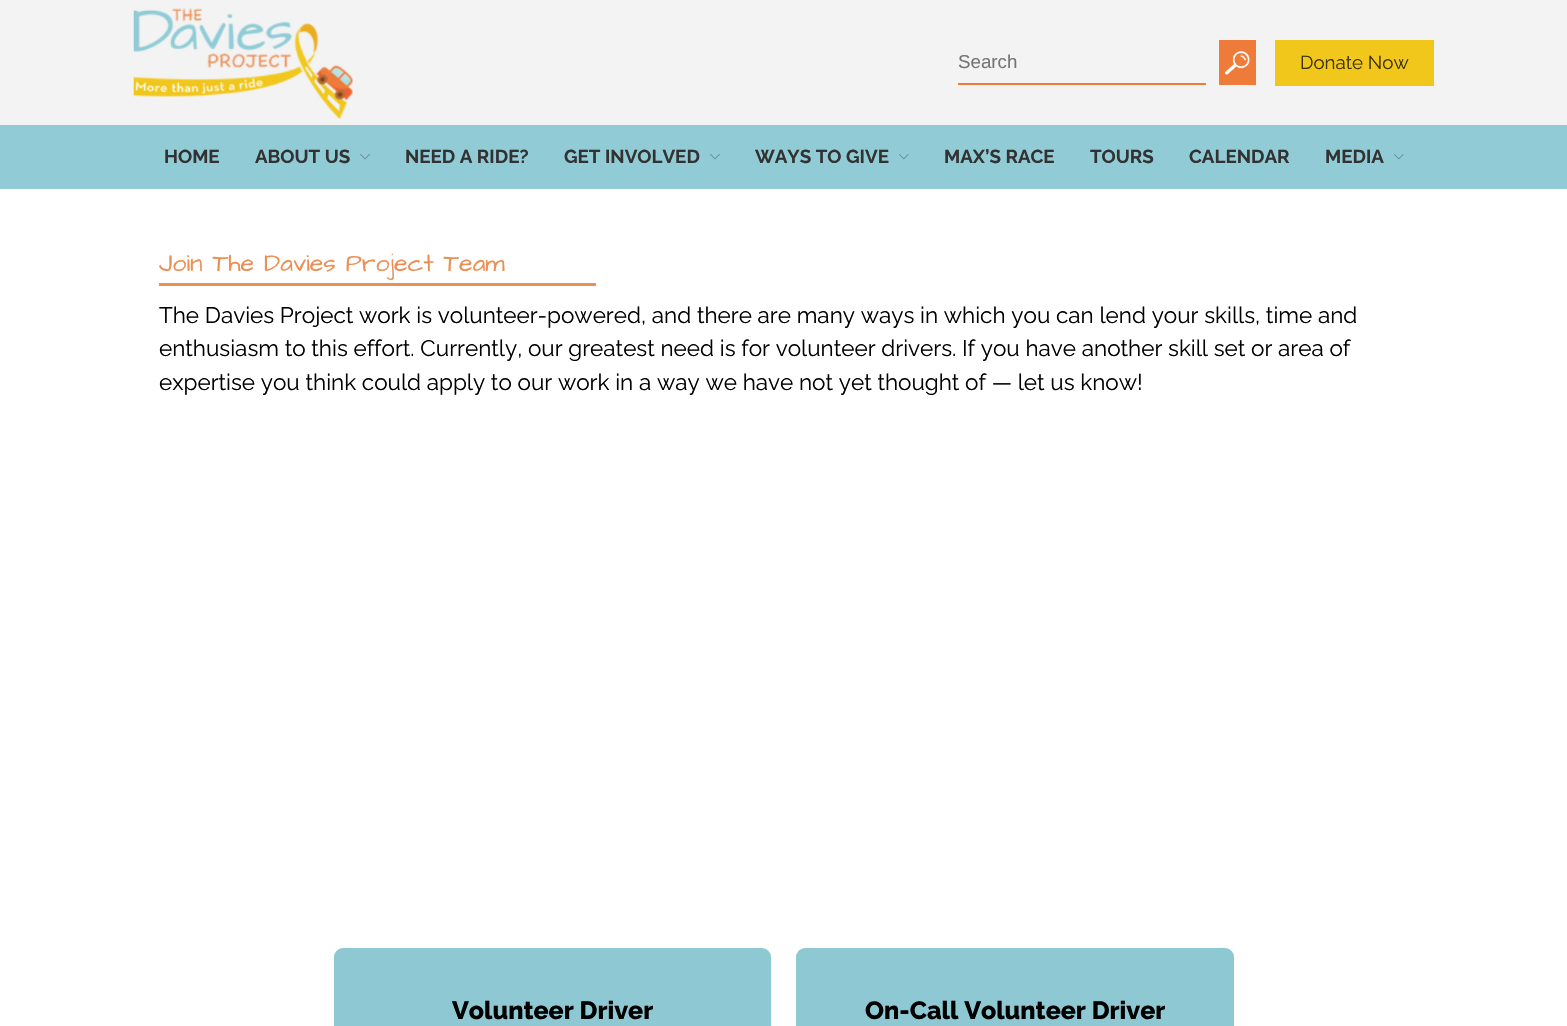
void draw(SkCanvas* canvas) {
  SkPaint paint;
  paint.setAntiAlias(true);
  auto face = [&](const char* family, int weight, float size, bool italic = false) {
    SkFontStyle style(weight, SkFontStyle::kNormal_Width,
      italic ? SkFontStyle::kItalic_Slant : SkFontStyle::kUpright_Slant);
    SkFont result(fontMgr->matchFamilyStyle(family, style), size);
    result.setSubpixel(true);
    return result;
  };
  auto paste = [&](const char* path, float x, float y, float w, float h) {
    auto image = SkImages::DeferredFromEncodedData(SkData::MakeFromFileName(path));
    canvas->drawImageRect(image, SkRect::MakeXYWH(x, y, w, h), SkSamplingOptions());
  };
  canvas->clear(0xffffffff);
  paint.setColor(0xfff3f3f3);
  canvas->drawRect(SkRect::MakeXYWH(0, 0, 1567, 125), paint);
  paste("img/1.png", 133, 8, 220, 111);
  paint.setColor(0xffef7b3a);
  canvas->drawRect(SkRect::MakeXYWH(958, 83, 248, 2), paint);
  canvas->drawRect(SkRect::MakeXYWH(1219, 40, 37, 45), paint);
  paste("img/2.png", 1225, 51, 25, 24);
  paint.setColor(0xfff1c71c);
  canvas->drawRect(SkRect::MakeXYWH(1275, 40, 159, 46), paint);
  paint.setColor(0xff90cbd6);
  canvas->drawRect(SkRect::MakeXYWH(0, 125, 1567, 64), paint);
  paste("img/3.png", 360, 154, 10, 6);
  paste("img/3.png", 710, 154, 10, 6);
  paste("img/4.png", 899, 154, 10, 6);
  paste("img/4.png", 1394, 154, 10, 6);
  paint.setColor(0xffeb8f54);
  canvas->drawRect(SkRect::MakeXYWH(159, 283, 437, 3), paint);
  paint.setColor(0xff8ec8d3);
  canvas->drawRoundRect(SkRect::MakeXYWH(334, 948, 437, 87), 9, 9, paint);
  canvas->drawRoundRect(SkRect::MakeXYWH(796, 948, 438, 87), 9, 9, paint);
  auto f0 = face("Liberation Sans", 400, 18.75f);
  paint.setColor(0xff757575);
  canvas->drawString("Search", 958, 68, f0, paint);
  auto f1 = face("Raleway", 400, 18.75f);
  paint.setColor(0xff3c3207);
  canvas->drawString("Donate Now", 1300, 69, f1, paint);
  auto f2 = face("Raleway", 700, 18.75f);
  paint.setColor(0xff323232);
  {
    const struct { const char* s; float x, y; } items[] = {
      {"HOME", 164, 163},
      {"ABOUT US", 255, 163},
      {"NEED A RIDE?", 405, 163},
      {"GET INVOLVED", 564, 163},
      {"WAYS TO GIVE", 755, 163},
      {"MAX’S RACE", 944, 163},
      {"TOURS", 1090, 163},
      {"CALENDAR", 1189, 163},
      {"MEDIA", 1325, 163},
    };
    for (auto [s, x, y] : items) {
      canvas->drawString(s, x, y, f2, paint);
    }
  }
  auto f3 = face("Architects Daughter", 400, 25);
  paint.setColor(0xffeb8f54);
  canvas->drawString("Join The Davies Project Team", 159, 271, f3, paint);
  auto f4 = face("Raleway", 400, 22.5f);
  paint.setColor(0xff000000);
  {
    const struct { const char* s; float x, y; } items[] = {
      {"The Davies Project work is volunteer-powered, and there are many ways in which you can lend your skills, time and", 159, 323},
      {"enthusiasm to this effort. Currently, our greatest need is for volunteer drivers. If you have another skill set or area of", 159, 356},
      {"expertise you think could apply to our work in a way we have not yet thought of — let us know!", 159, 390},
    };
    for (auto [s, x, y] : items) {
      canvas->drawString(s, x, y, f4, paint);
    }
  }
  auto f5 = face("Raleway", 800, 25);
  canvas->drawString("Volunteer Driver", 452, 1019, f5, paint);
  canvas->drawString("On-Call Volunteer Driver", 865, 1019, f5, paint);
}
